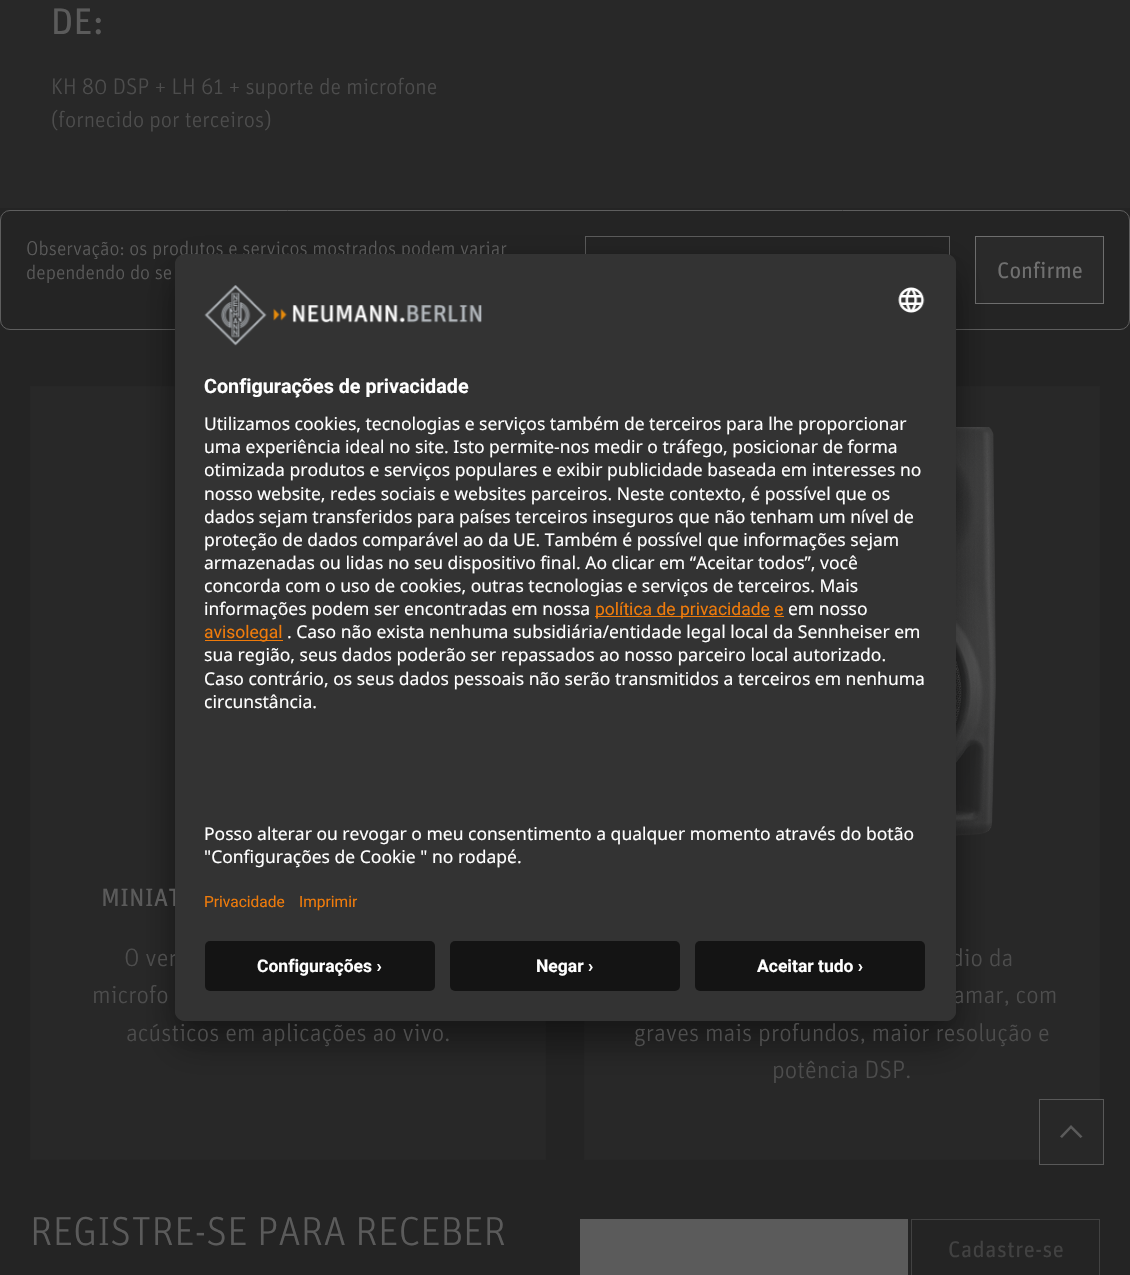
void draw(SkCanvas* canvas) {
  SkPaint paint;
  paint.setAntiAlias(true);
  auto face = [&](const char* family, int weight, float size, bool italic = false) {
    SkFontStyle style(weight, SkFontStyle::kNormal_Width,
      italic ? SkFontStyle::kItalic_Slant : SkFontStyle::kUpright_Slant);
    SkFont result(fontMgr->matchFamilyStyle(family, style), size);
    result.setSubpixel(true);
    return result;
  };
  auto writeSpaced = [&](const char* s, float x, float y, const SkFont& font, const SkPaint& ink, float letter, float word) {
    std::vector<SkGlyphID> glyphs(font.countText(s, strlen(s), SkTextEncoding::kUTF8));
    std::vector<float> xs(glyphs.size());
    font.textToGlyphs(s, strlen(s), SkTextEncoding::kUTF8, glyphs);
    font.getXPos(glyphs, xs, x);
    float extra = 0;
    for (size_t i = 0; i < glyphs.size(); i++) {
      xs[i] += extra;
      extra += letter + word * (glyphs[i] == font.unicharToGlyph(' '));
    }
    canvas->drawTextBlob(SkTextBlob::MakeFromPosHGlyphs(glyphs, xs, y, font), 0, 0, ink);
  };
  auto paste = [&](const char* path, float x, float y, float w, float h) {
    auto image = SkImages::DeferredFromEncodedData(SkData::MakeFromFileName(path));
    canvas->drawImageRect(image, SkRect::MakeXYWH(x, y, w, h), SkSamplingOptions());
  };
  auto shape = [&](const char* data, bool evenOdd = false) {
    SkPath result = *SkParsePath::FromSVGString(data);
    if (evenOdd) result.setFillType(SkPathFillType::kEvenOdd);
    return result;
  };
  canvas->clear(0xff242424);
  paint.setColor(0xff282828);
  canvas->drawRect(SkRect::MakeXYWH(0, 0, 1130, 208), paint);
  canvas->drawRect(SkRect::MakeXYWH(30.5f, 386.5f, 515, 773), paint);
  paint.setStroke(true);
  paint.setStrokeWidth(1);
  paint.setColor(0xff272727);
  canvas->drawRect(SkRect::MakeXYWH(30.5f, 386.5f, 515, 773), paint);
  paint.setStroke(false);
  paint.setColor(0xff282828);
  canvas->drawRect(SkRect::MakeXYWH(584.5f, 386.5f, 515, 773), paint);
  paint.setStroke(true);
  paint.setColor(0xff272727);
  canvas->drawRect(SkRect::MakeXYWH(584.5f, 386.5f, 515, 773), paint);
  paste("img/1.png", 956, 427, 40, 409);
  paint.setStroke(false);
  paint.setColor(0xff5b5b5b);
  canvas->drawRect(SkRect::MakeXYWH(580, 1219, 328, 56), paint);
  paint.setStroke(true);
  paint.setColor(0xff424242);
  canvas->drawRect(SkRect::MakeXYWH(911.5f, 1219.5f, 188, 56), paint);
  paint.setColor(0xff5e5e5e);
  canvas->drawRoundRect(SkRect::MakeXYWH(0.5f, 210.5f, 1129, 119), 9.5f, 9.5f, paint);
  paint.setColor(0xff5b5b5b);
  canvas->drawRect(SkRect::MakeXYWH(585.5f, 236.5f, 364, 67), paint);
  paint.setStroke(false);
  paint.setColor(0xff2a2a2a);
  canvas->drawRect(SkRect::MakeXYWH(975.5f, 236.5f, 128, 67), paint);
  paint.setStroke(true);
  paint.setColor(0xff6e6e6e);
  canvas->drawRect(SkRect::MakeXYWH(975.5f, 236.5f, 128, 67), paint);
  paint.setStroke(false);
  paint.setColor(0x4d000000);
  paint.setMaskFilter(SkMaskFilter::MakeBlur(kNormal_SkBlurStyle, 17.5f));
  canvas->drawRoundRect(SkRect::MakeXYWH(175, 279, 781, 767), 10, 10, paint);
  paint.setMaskFilter(nullptr);
  paint.setColor(0x38000000);
  paint.setMaskFilter(SkMaskFilter::MakeBlur(kNormal_SkBlurStyle, 16));
  canvas->drawRoundRect(SkRect::MakeXYWH(175, 260, 781, 768), 10, 10, paint);
  paint.setMaskFilter(nullptr);
  paint.setColor(0xff282828);
  canvas->drawRect(SkRect::MakeXYWH(1039.5f, 1099.5f, 64, 65), paint);
  paint.setStroke(true);
  paint.setColor(0xff595959);
  canvas->drawRect(SkRect::MakeXYWH(1039.5f, 1099.5f, 64, 65), paint);
  paint.setStroke(false);
  paint.setColor(0xff5b5b5b);
  canvas->drawPath(shape("M1060 1136.5L1071 1125L1082.5 1136.5L1080.5 1138L1071 1128.5L1062 1138Z"), paint);
  auto f0 = face("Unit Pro", 400, 37);
  canvas->drawString("DE:", 51, 34, f0, paint);
  auto f1 = face("Unit Pro", 300, 22.5f);
  paint.setColor(0xff4d4d4d);
  canvas->drawString("KH 80 DSP + LH 61 + suporte de microfone", 51, 94, f1, paint);
  canvas->drawString("(fornecido por terceiros)", 51, 127, f1, paint);
  auto f2 = face("Unit Pro", 400, 25);
  paint.setColor(0xff5b5b5b);
  canvas->drawString("MINIAT", 101, 906, f2, paint);
  auto f3 = face("Unit Pro", 300, 25);
  paint.setColor(0xff4d4d4d);
  {
    const struct { const char* s; float x, y; } items[] = {
      {"O ver", 124, 966},
      {"microfo", 92, 1003},
      {"acústicos em aplicações ao vivo.", 126, 1041},
      {"dio da", 951, 966},
      {"amar, com", 953, 1003},
      {"graves mais profundos, maior resolução e", 634, 1041},
      {"potência DSP.", 772, 1078},
    };
    for (auto [s, x, y] : items) {
      canvas->drawString(s, x, y, f3, paint);
    }
  }
  auto f4 = face("Unit Pro", 300, 40.5f);
  paint.setColor(0xff5b5b5b);
  canvas->drawString("REGISTRE-SE PARA RECEBER", 30, 1245, f4, paint);
  auto f5 = face("Unit Pro", 400, 22.5f);
  paint.setColor(0xff424242);
  writeSpaced("Cadastre-se", 948, 1257, f5, paint, 0.5f, 0);
  auto f6 = face("Unit Pro", 300, 20);
  paint.setColor(0xff5b5b5b);
  canvas->drawString("Observação: os produtos e serviços mostrados podem variar", 26, 255, f6, paint);
  canvas->drawString("dependendo do se", 26, 279, f6, paint);
  paint.setColor(0xff707070);
  canvas->drawString("Confirme", 997, 278, f5, paint);
  paint.setColor(0xff333333);
  canvas->drawRoundRect(SkRect::MakeXYWH(175, 254, 781, 767), 10, 10, paint);
  canvas->save();
  canvas->clipPath(shape("M185 254H946C951.5 254 956 258.5 956 264V1011C956 1016.5 951.5 1021 946 1021H185C179.5 1021 175 1016.5 175 1011V264C175 258.5 179.5 254 185 254Z"), true);
  canvas->clipPath(shape("M185 254H946C951.5 254 956 258.5 956 264V931H175V264C175 258.5 179.5 254 185 254Z"), true);
  canvas->drawRect(SkRect::MakeXYWH(175, 255, 781, 676), paint);
  canvas->restore();
  paste("img/2.png", 204, 285, 278, 61);
  paste("img/3.png", 898, 287, 27, 26);
  auto f7 = face("Roboto", 700, 19.75f);
  paint.setColor(0xffffffff);
  canvas->drawString("Configurações de privacidade", 204, 393, f7, paint);
  auto f8 = face("Noto Sans", 400, 17.5f);
  {
    const struct { const char* s; float x, y; } items[] = {
      {"Utilizamos cookies, tecnologias e serviços também de terceiros para lhe proporcionar", 204, 430},
      {"uma experiência ideal no site. Isto permite-nos medir o tráfego, posicionar de forma", 204, 453},
      {"otimizada produtos e serviços populares e exibir publicidade baseada em interesses no", 204, 476},
      {"nosso website, redes sociais e websites parceiros. Neste contexto, é possível que os", 204, 500},
      {"dados sejam transferidos para países terceiros inseguros que não tenham um nível de", 204, 523},
      {"proteção de dados comparável ao da UE. Também é possível que informações sejam", 204, 546},
      {"armazenadas ou lidas no seu dispositivo final. Ao clicar em “Aceitar todos”, você", 204, 569},
      {"concorda com o uso de cookies, outras tecnologias e serviços de terceiros. Mais", 204, 592},
      {"informações podem ser encontradas em nossa", 204, 615},
    };
    for (auto [s, x, y] : items) {
      canvas->drawString(s, x, y, f8, paint);
    }
  }
  paint.setColor(0xffef7b0b);
  canvas->drawRect(SkRect::MakeXYWH(595, 616, 175, 1), paint);
  auto f9 = face("Roboto", 400, 17.5f);
  canvas->drawString("política de privacidade e", 595, 615, f9, paint);
  paint.setColor(0xffffffff);
  canvas->drawString("em nosso", 788, 615, f8, paint);
  paint.setColor(0xffef7b0b);
  canvas->drawRect(SkRect::MakeXYWH(774, 616, 10, 1), paint);
  canvas->drawRect(SkRect::MakeXYWH(205, 640, 78, 1), paint);
  canvas->drawString("avisolegal", 204, 638, f9, paint);
  paint.setColor(0xffffffff);
  {
    const struct { const char* s; float x, y; } items[] = {
      {". Caso não exista nenhuma subsidiária/entidade legal local da Sennheiser em", 287, 638},
      {"sua região, seus dados poderão ser repassados ao nosso parceiro local autorizado.", 204, 661},
      {"Caso contrário, os seus dados pessoais não serão transmitidos a terceiros em nenhuma", 204, 685},
      {"circunstância.", 204, 708},
      {"Posso alterar ou revogar o meu consentimento a qualquer momento através do botão", 204, 840},
      {"\"Configurações de Cookie \" no rodapé.", 204, 863},
    };
    for (auto [s, x, y] : items) {
      canvas->drawString(s, x, y, f8, paint);
    }
  }
  auto f10 = face("Roboto", 400, 15.5f);
  paint.setColor(0xffef7b0b);
  canvas->drawString("Privacidade", 204, 907, f10, paint);
  canvas->drawString("Imprimir", 299, 907, f10, paint);
  paint.setColor(0xff333333);
  canvas->drawPath(shape("M175 931H956V1011C956 1016.5 951.5 1021 946 1021H185C179.5 1021 175 1016.5 175 1011Z"), paint);
  paint.setColor(0xff141414);
  canvas->drawRoundRect(SkRect::MakeXYWH(205, 941, 230, 50), 5, 5, paint);
  auto f11 = face("Roboto", 700, 17.5f);
  paint.setColor(0xffffffff);
  canvas->drawString("Configurações ›", 257, 972, f11, paint);
  paint.setColor(0xff141414);
  canvas->drawRoundRect(SkRect::MakeXYWH(450, 941, 230, 50), 5, 5, paint);
  paint.setColor(0xffffffff);
  canvas->drawString("Negar ›", 536, 972, f11, paint);
  paint.setColor(0xff141414);
  canvas->drawRoundRect(SkRect::MakeXYWH(695, 941, 230, 50), 5, 5, paint);
  paint.setColor(0xffffffff);
  canvas->drawString("Aceitar tudo ›", 757, 972, f11, paint);
}
